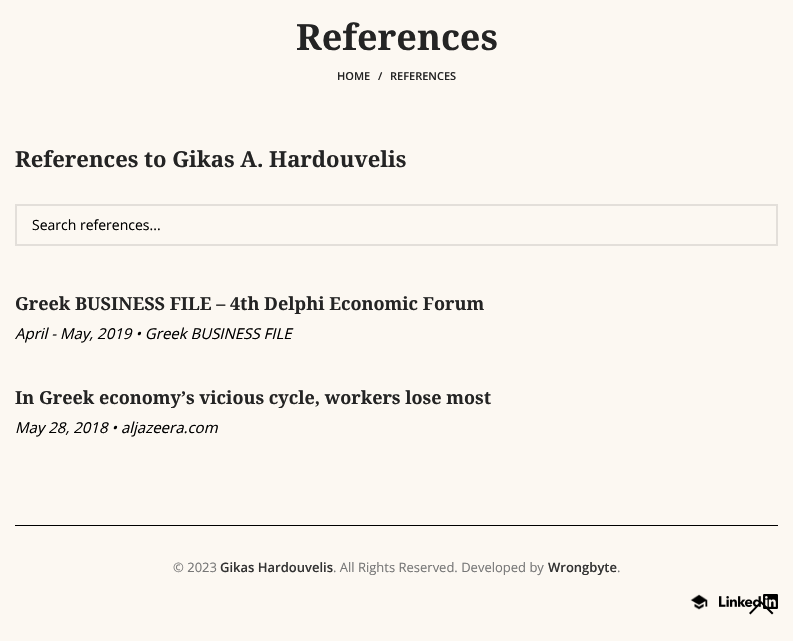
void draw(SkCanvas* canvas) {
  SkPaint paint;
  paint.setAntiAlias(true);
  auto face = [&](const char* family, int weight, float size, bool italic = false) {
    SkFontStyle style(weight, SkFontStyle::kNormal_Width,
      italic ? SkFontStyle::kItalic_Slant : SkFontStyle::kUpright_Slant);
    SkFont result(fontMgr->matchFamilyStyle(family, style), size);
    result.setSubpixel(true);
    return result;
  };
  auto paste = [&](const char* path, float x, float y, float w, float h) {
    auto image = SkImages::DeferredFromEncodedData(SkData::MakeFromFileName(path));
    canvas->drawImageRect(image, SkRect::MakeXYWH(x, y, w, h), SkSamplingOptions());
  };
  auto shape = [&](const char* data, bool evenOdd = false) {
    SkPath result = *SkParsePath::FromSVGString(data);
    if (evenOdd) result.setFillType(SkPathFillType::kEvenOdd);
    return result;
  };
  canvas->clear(0xfffcf8f2);
  paint.setStroke(true);
  paint.setStrokeWidth(2);
  paint.setColor(0xffe3dfda);
  canvas->drawRect(SkRect::MakeXYWH(16, 205, 761, 40), paint);
  paint.setStroke(false);
  paint.setColor(0xff000000);
  canvas->drawRect(SkRect::MakeXYWH(15, 525, 763, 1), paint);
  paste("img/1.png", 690, 594, 18, 16);
  paste("img/2.png", 719, 594, 59, 15);
  canvas->drawPath(shape("M772 614.5L773.5 613L761 601L749 613L750.5 614.5L761 603.5Z"), paint);
  auto f0 = face("Noto Serif", 700, 36);
  paint.setColor(0xff242424);
  canvas->drawString("References", 296, 50, f0, paint);
  auto f1 = face("Open Sans", 600, 11);
  {
    const struct { const char* s; float x, y; } items[] = {
      {"HOME", 337, 80},
      {"/", 378, 80},
      {"REFERENCES", 390, 80},
    };
    for (auto [s, x, y] : items) {
      canvas->drawString(s, x, y, f1, paint);
    }
  }
  auto f2 = face("Noto Serif", 700, 22);
  canvas->drawString("References to Gikas A. Hardouvelis", 15, 167, f2, paint);
  auto f3 = face("Open Sans", 400, 14);
  paint.setColor(0xff000000);
  canvas->drawString("Search references...", 32, 230, f3, paint);
  auto f4 = face("Noto Serif", 700, 18);
  paint.setColor(0xff242424);
  canvas->drawString("Greek BUSINESS FILE – 4th Delphi Economic Forum", 15, 310, f4, paint);
  auto f5 = face("Open Sans", 400, 15, true);
  paint.setColor(0xff000000);
  canvas->drawString("April - May, 2019 • Greek BUSINESS FILE", 15, 339, f5, paint);
  paint.setColor(0xff242424);
  canvas->drawString("In Greek economy’s vicious cycle, workers lose most", 15, 404, f4, paint);
  paint.setColor(0xff000000);
  canvas->drawString("May 28, 2018 • aljazeera.com", 15, 433, f5, paint);
  auto f6 = face("Open Sans", 400, 13);
  paint.setColor(0xff777777);
  canvas->drawString("© 2023", 173, 572, f6, paint);
  auto f7 = face("Open Sans", 600, 13);
  paint.setColor(0xff333333);
  canvas->drawString("Gikas Hardouvelis", 220, 572, f7, paint);
  paint.setColor(0xff777777);
  canvas->drawString(". All Rights Reserved. Developed by", 333, 572, f6, paint);
  paint.setColor(0xff333333);
  canvas->drawString("Wrongbyte", 548, 572, f7, paint);
  paint.setColor(0xff777777);
  canvas->drawString(".", 617, 572, f6, paint);
}
